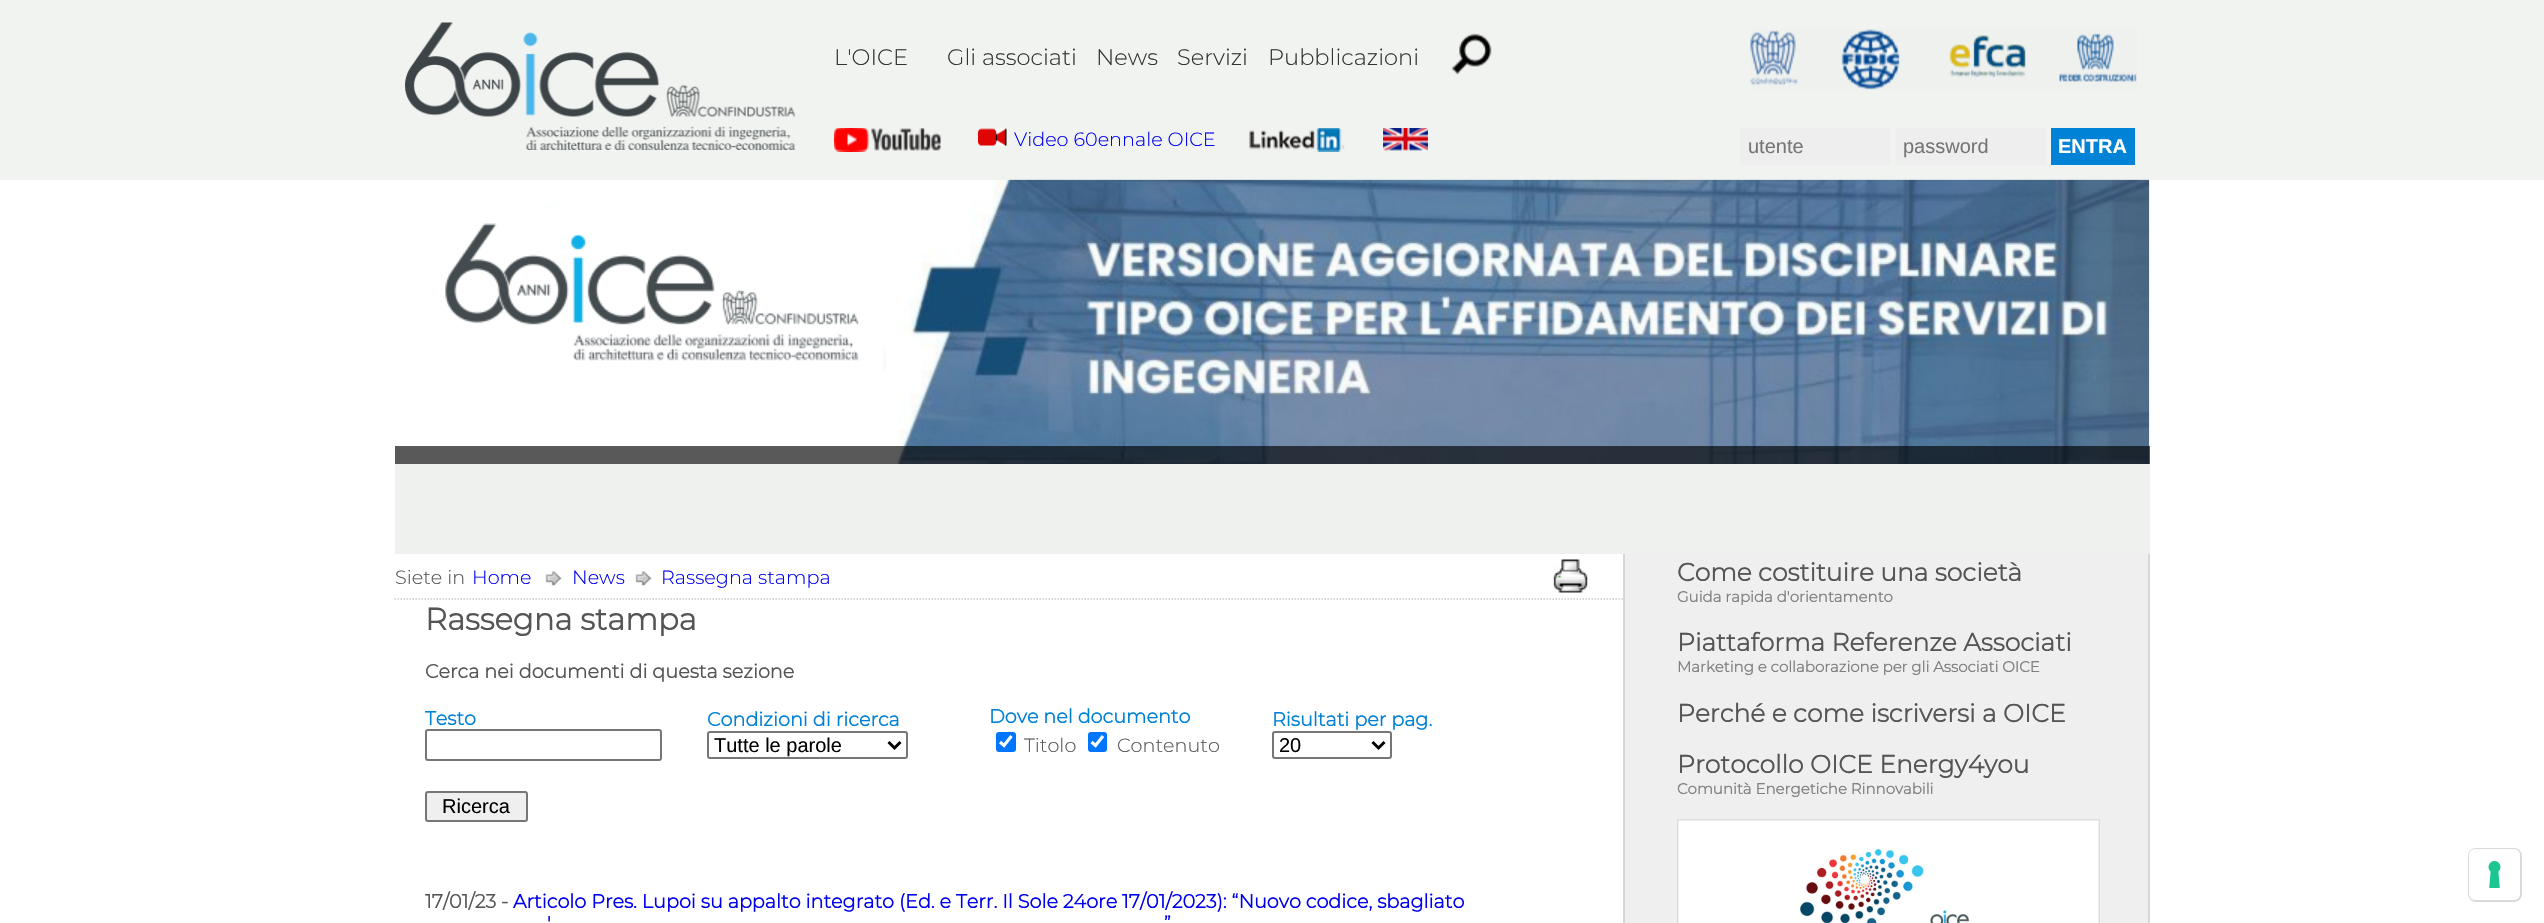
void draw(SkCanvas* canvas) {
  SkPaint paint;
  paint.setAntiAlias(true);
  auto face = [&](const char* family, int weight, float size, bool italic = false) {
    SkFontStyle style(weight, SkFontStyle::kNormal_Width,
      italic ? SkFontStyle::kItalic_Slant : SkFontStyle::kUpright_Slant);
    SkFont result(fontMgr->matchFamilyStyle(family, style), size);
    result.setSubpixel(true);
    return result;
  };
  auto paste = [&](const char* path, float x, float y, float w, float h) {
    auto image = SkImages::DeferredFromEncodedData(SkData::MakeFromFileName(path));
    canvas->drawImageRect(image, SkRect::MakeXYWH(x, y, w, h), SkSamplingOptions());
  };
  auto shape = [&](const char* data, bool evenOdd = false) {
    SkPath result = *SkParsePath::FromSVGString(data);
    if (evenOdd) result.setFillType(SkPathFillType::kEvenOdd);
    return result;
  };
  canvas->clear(0xffffffff);
  paint.setColor(0xffeff1ee);
  canvas->drawRect(SkRect::MakeXYWH(395, 179, 1755, 375), paint);
  paste("img/8.png", 395, 179, 1754, 285);
  paint.setColor(0xdeeff1ee);
  canvas->drawRect(SkRect::MakeXYWH(0, 0, 2544, 180), paint);
  paste("img/1.png", 405, 22, 390, 128);
  paste("img/2.png", 1451, 33, 41, 42);
  paste("img/3.png", 1750, 29, 387, 61);
  paste("img/4.png", 834, 128, 107, 24);
  paste("img/5.png", 978, 128, 29, 18);
  paste("img/6.png", 1249, 128, 96, 24);
  paste("img/7.png", 1383, 128, 45, 23);
  {
    const struct { float x, y, w, h; SkColor color; } items[] = {
      {1740, 128, 150, 37, 0xffeeeeee},
      {1896, 128, 150, 37, 0xffeeeeee},
      {2051, 128, 84, 37, 0xff0082d6},
      {395, 446, 1755, 18, 0xa6000000},
    };
    for (auto [x, y, w, h, color] : items) {
      paint.setColor(color);
      canvas->drawRect(SkRect::MakeXYWH(x, y, w, h), paint);
    }
  }
  paint.setStroke(true);
  paint.setStrokeWidth(1.5f);
  paint.setColor(0xffcccccc);
  paint.setPathEffect(SkDashPathEffect::Make({{1.5f, 1.5f}}, 0));
  canvas->drawPath(shape("M394.5 599H1623"), paint);
  paint.setPathEffect(nullptr);
  paste("img/9.png", 545, 571, 17, 15);
  paste("img/9.png", 635, 571, 17, 15);
  paste("img/10.png", 1553, 559, 35, 34);
  paint.setStrokeWidth(2);
  paint.setColor(0xff767676);
  canvas->drawRoundRect(SkRect::MakeXYWH(426, 730, 235, 30), 2, 2, paint);
  canvas->drawRoundRect(SkRect::MakeXYWH(708, 732, 199, 26), 2, 2, paint);
  paint.setStrokeWidth(3);
  paint.setColor(0xff000000);
  canvas->drawPath(shape("M888.5 742L894.5 748L900.5 742"), paint);
  paint.setStroke(false);
  paint.setColor(0xff0075ff);
  canvas->drawRoundRect(SkRect::MakeXYWH(996, 732, 20, 20), 3, 3, paint);
  paint.setStroke(true);
  paint.setStrokeWidth(3.1f);
  paint.setColor(0xffffffff);
  canvas->drawPath(shape("M1000 742L1004 745.5L1011.5 736"), paint);
  paint.setStroke(false);
  paint.setColor(0xff0075ff);
  canvas->drawRoundRect(SkRect::MakeXYWH(1088, 732, 19, 20), 3, 3, paint);
  paint.setStroke(true);
  paint.setColor(0xffffffff);
  canvas->drawPath(shape("M1091.5 742L1095.5 745.5L1103 736"), paint);
  paint.setStrokeWidth(2);
  paint.setColor(0xff767676);
  canvas->drawRoundRect(SkRect::MakeXYWH(1273, 732, 118, 26), 2, 2, paint);
  paint.setStrokeWidth(3);
  paint.setColor(0xff000000);
  canvas->drawPath(shape("M1372.5 742L1378.5 748L1384.5 742"), paint);
  paint.setStroke(false);
  paint.setColor(0xffefefef);
  canvas->drawRoundRect(SkRect::MakeXYWH(426, 792, 101, 29), 2, 2, paint);
  paint.setStroke(true);
  paint.setStrokeWidth(2);
  paint.setColor(0xff767676);
  canvas->drawRoundRect(SkRect::MakeXYWH(426, 792, 101, 29), 2, 2, paint);
  paint.setStroke(false);
  {
    const struct { float x, y, w, h; SkColor color; } items[] = {
      {1625, 554, 523, 369, 0xffefefef},
      {2148, 554, 2, 369, 0xffd7d7d7},
      {1623, 554, 2, 369, 0xffd7d7d7},
    };
    for (auto [x, y, w, h, color] : items) {
      paint.setColor(color);
      canvas->drawRect(SkRect::MakeXYWH(x, y, w, h), paint);
    }
  }
  paint.setStroke(true);
  paint.setColor(0xffdddddd);
  canvas->drawRect(SkRect::MakeXYWH(1678, 820, 421, 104), paint);
  paste("img/11.png", 1678, 820, 421, 103);
  paint.setColor(0xffd9d9d9);
  canvas->drawRoundRect(SkRect::MakeXYWH(2469, 849, 52, 52), 7, 7, paint);
  paint.setStroke(false);
  paint.setColor(0xffffffff);
  canvas->drawRoundRect(SkRect::MakeXYWH(2469, 849, 51, 51), 6, 6, paint);
  paste("img/12.png", 2488, 861, 13, 27);
  auto f0 = face("Montserrat", 300, 22.5f);
  paint.setColor(0xff333333);
  {
    const struct { const char* s; float x, y; } items[] = {
      {"L'OICE", 834, 65},
      {"Gli associati", 947, 65},
      {"News", 1096, 65},
      {"Servizi", 1177, 65},
      {"Pubblicazioni", 1268, 65},
    };
    for (auto [s, x, y] : items) {
      canvas->drawString(s, x, y, f0, paint);
    }
  }
  auto f1 = face("Montserrat", 300, 19.2f);
  paint.setColor(0xff0000ee);
  canvas->drawString("Video 60ennale OICE", 1014, 146, f1, paint);
  auto f2 = face("Liberation Sans", 400, 20);
  paint.setColor(0xff757575);
  canvas->drawString("utente", 1748, 153, f2, paint);
  canvas->drawString("password", 1903, 153, f2, paint);
  auto f3 = face("Liberation Sans", 700, 20);
  paint.setColor(0xffffffff);
  canvas->drawString("ENTRA", 2058, 153, f3, paint);
  paint.setColor(0xff555555);
  canvas->drawString("Siete in", 395, 584, f1, paint);
  paint.setColor(0xff0000ee);
  {
    const struct { const char* s; float x, y; } items[] = {
      {"Home", 472, 584},
      {"News", 572, 584},
      {"Rassegna stampa", 661, 584},
    };
    for (auto [s, x, y] : items) {
      canvas->drawString(s, x, y, f1, paint);
    }
  }
  auto f4 = face("Montserrat", 700, 30.75f);
  paint.setColor(0xff555555);
  canvas->drawString("Rassegna stampa", 425, 630, f4, paint);
  auto f5 = face("Montserrat", 700, 19.2f);
  canvas->drawString("Cerca nei documenti di questa sezione", 425, 678, f5, paint);
  paint.setColor(0xff0081d6);
  canvas->drawString("Testo", 425, 725, f5, paint);
  canvas->drawString("Condizioni di ricerca", 707, 726, f5, paint);
  paint.setColor(0xff000000);
  canvas->drawString("Tutte le parole", 714, 752, f2, paint);
  paint.setColor(0xff0081d6);
  canvas->drawString("Dove nel documento", 989, 723, f5, paint);
  paint.setColor(0xff555555);
  canvas->drawString("Titolo", 1024, 752, f1, paint);
  canvas->drawString("Contenuto", 1117, 752, f1, paint);
  paint.setColor(0xff0081d6);
  canvas->drawString("Risultati per pag.", 1272, 726, f5, paint);
  paint.setColor(0xff000000);
  canvas->drawString("20", 1279, 752, f2, paint);
  canvas->drawString("Ricerca", 442, 813, f2, paint);
  paint.setColor(0xff555555);
  canvas->drawString("17/01/23 -", 425, 908, f5, paint);
  paint.setColor(0xff0000ee);
  {
    const struct { const char* s; float x, y; } items[] = {
      {"Articolo Pres. Lupoi su appalto integrato (Ed. e Terr. Il Sole 24ore 17/01/2023): “Nuovo codice, sbagliato", 513, 908},
      {"'", 547, 930},
      {"”", 1164, 930},
    };
    for (auto [s, x, y] : items) {
      canvas->drawString(s, x, y, f5, paint);
    }
  }
  auto f6 = face("Montserrat", 700, 25);
  paint.setColor(0xff555555);
  canvas->drawString("Come costituire una società", 1677, 581, f6, paint);
  auto f7 = face("Montserrat", 700, 15);
  paint.setColor(0xff808080);
  canvas->drawString("Guida rapida d'orientamento", 1677, 602, f7, paint);
  paint.setColor(0xff555555);
  canvas->drawString("Piattaforma Referenze Associati", 1677, 651, f6, paint);
  paint.setColor(0xff808080);
  canvas->drawString("Marketing e collaborazione per gli Associati OICE", 1677, 672, f7, paint);
  paint.setColor(0xff555555);
  canvas->drawString("Perché e come iscriversi a OICE", 1677, 722, f6, paint);
  canvas->drawString("Protocollo OICE Energy4you", 1677, 773, f6, paint);
  paint.setColor(0xff808080);
  canvas->drawString("Comunità Energetiche Rinnovabili", 1677, 794, f7, paint);
}
